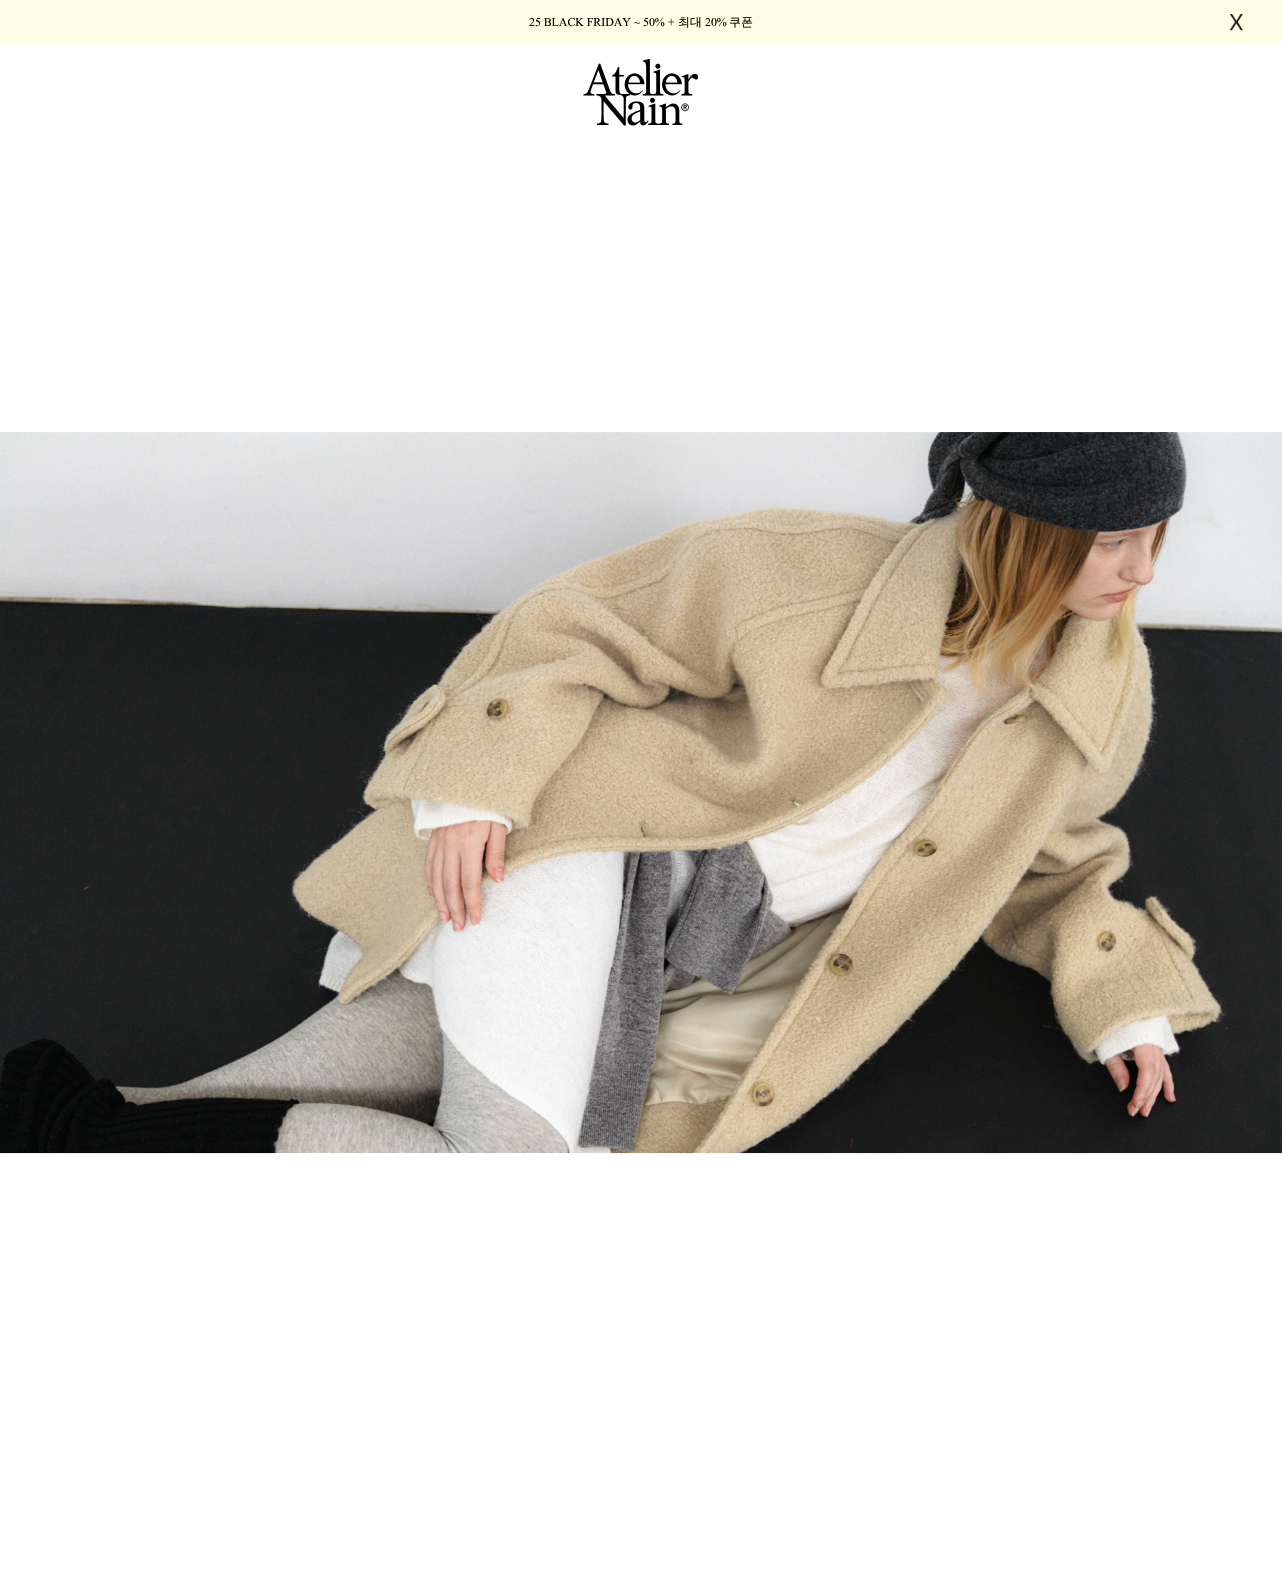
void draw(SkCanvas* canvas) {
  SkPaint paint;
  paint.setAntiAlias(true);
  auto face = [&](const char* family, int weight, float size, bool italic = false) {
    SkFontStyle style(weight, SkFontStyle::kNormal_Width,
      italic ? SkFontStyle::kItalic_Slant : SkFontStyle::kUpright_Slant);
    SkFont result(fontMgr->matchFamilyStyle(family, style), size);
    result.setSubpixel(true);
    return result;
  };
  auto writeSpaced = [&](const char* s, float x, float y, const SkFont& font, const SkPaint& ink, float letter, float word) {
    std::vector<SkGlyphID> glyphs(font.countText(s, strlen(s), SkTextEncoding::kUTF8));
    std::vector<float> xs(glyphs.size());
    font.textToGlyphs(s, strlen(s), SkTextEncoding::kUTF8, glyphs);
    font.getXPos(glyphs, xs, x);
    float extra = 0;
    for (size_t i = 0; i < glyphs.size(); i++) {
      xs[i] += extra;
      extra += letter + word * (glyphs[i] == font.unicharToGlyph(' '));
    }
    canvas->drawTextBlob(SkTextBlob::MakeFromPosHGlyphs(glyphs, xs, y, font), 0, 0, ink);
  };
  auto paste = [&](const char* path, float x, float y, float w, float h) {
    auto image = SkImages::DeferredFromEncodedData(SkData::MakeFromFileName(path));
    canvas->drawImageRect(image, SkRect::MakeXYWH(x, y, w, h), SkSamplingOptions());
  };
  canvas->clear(0xffffffff);
  paint.setColor(0xfffffde3);
  canvas->drawRect(SkRect::MakeXYWH(0, 0, 1282, 44), paint);
  paste("img/1.png", 1229, 14, 14, 17);
  paste("img/2.png", 583, 59, 115, 67);
  paste("img/3.png", 0, 432, 1282, 722);
  auto f0 = face("Times New Roman", 400, 12);
  paint.setColor(0xff000000);
  writeSpaced("25 BLACK FRIDAY ~ 50% +", 529, 26, f0, paint, -0.1f, 0);
  auto f1 = face("WenQuanYi Zen Hei", 500, 12);
  writeSpaced("최대", 678, 26, f1, paint, -0.1f, 0);
  writeSpaced("20%", 705, 26, f0, paint, -0.1f, 0);
  writeSpaced("쿠폰", 729, 26, f1, paint, -0.1f, 0);
}
